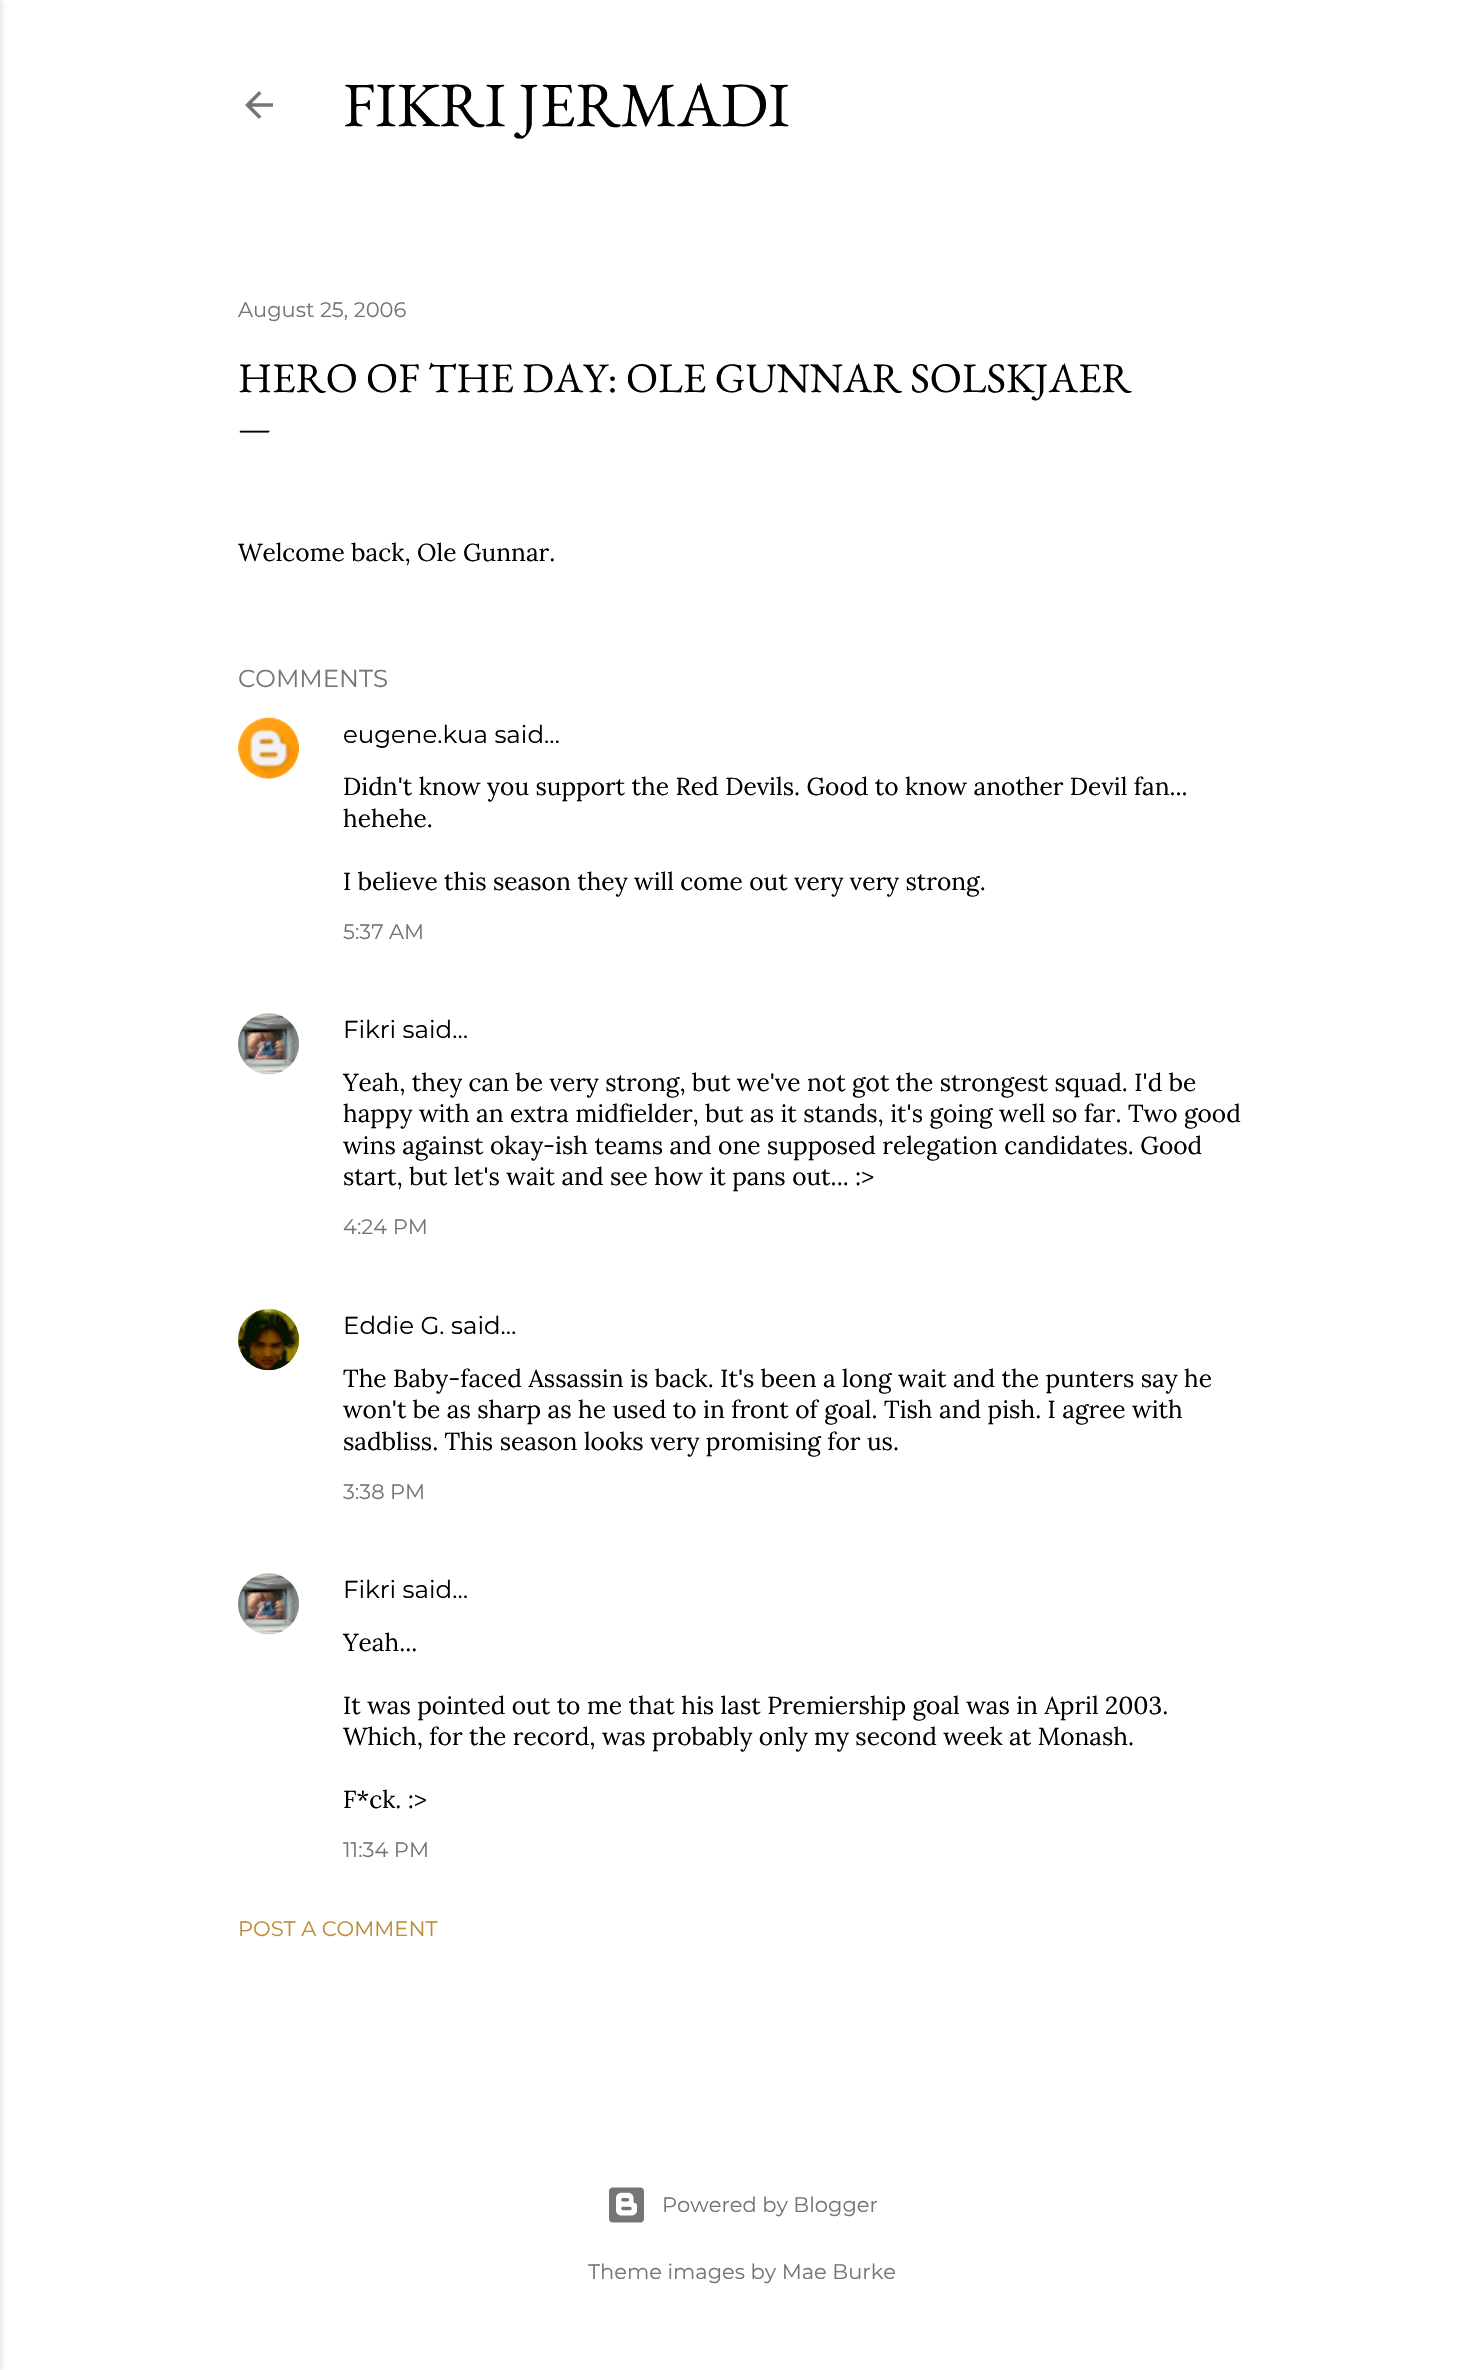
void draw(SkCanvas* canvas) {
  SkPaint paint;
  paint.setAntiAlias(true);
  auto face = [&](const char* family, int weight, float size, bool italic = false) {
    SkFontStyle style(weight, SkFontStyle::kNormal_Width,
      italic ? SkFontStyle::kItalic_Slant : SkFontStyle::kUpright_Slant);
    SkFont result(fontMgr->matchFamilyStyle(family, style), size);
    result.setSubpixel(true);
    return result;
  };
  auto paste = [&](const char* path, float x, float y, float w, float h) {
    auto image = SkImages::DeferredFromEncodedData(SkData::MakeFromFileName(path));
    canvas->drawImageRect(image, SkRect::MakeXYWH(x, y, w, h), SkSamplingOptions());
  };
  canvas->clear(0xffffffff);
  paint.setColor(0x1a000000);
  paint.setMaskFilter(SkMaskFilter::MakeBlur(kNormal_SkBlurStyle, 2.5f));
  canvas->drawRect(SkRect::MakeXYWH(-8, 0, 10, 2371), paint);
  paint.setMaskFilter(nullptr);
  paste("img/1.png", 245, 91, 28, 28);
  paste("img/2.png", 238, 717, 62, 62);
  paste("img/3.png", 238, 1013, 62, 62);
  paste("img/4.png", 238, 1309, 62, 62);
  paste("img/5.png", 238, 1573, 62, 62);
  paste("img/6.png", 609, 2187, 35, 36);
  auto f0 = face("EB Garamond", 400, 63);
  paint.setColor(0xff000000);
  canvas->drawString("FIKRI JERMADI", 343, 126, f0, paint);
  auto f1 = face("Montserrat", 400, 21);
  paint.setColor(0xff757575);
  canvas->drawString("August 25, 2006", 238, 317, f1, paint);
  auto f2 = face("EB Garamond", 400, 42);
  paint.setColor(0xff000000);
  canvas->drawString("HERO OF THE DAY: OLE GUNNAR SOLSKJAER", 238, 392, f2, paint);
  auto f3 = face("EB Garamond", 400, 35);
  canvas->drawString("—", 238, 439, f3, paint);
  auto f4 = face("Lora", 400, 24.5f);
  canvas->drawString("Welcome back, Ole Gunnar.", 238, 561, f4, paint);
  auto f5 = face("Montserrat", 400, 24.5f);
  paint.setColor(0xff757575);
  canvas->drawString("COMMENTS", 238, 687, f5, paint);
  paint.setColor(0xff000000);
  canvas->drawString("eugene.kua said…", 343, 743, f5, paint);
  {
    const struct { const char* s; float x, y; } items[] = {
      {"Didn't know you support the Red Devils. Good to know another Devil fan...", 343, 795},
      {"hehehe.", 343, 827},
      {"I believe this season they will come out very very strong.", 343, 890},
    };
    for (auto [s, x, y] : items) {
      canvas->drawString(s, x, y, f4, paint);
    }
  }
  paint.setColor(0xff757575);
  canvas->drawString("5:37 AM", 343, 939, f1, paint);
  paint.setColor(0xff000000);
  canvas->drawString("Fikri said…", 343, 1038, f5, paint);
  {
    const struct { const char* s; float x, y; } items[] = {
      {"Yeah, they can be very strong, but we've not got the strongest squad. I'd be", 343, 1091},
      {"happy with an extra midfielder, but as it stands, it's going well so far. Two good", 343, 1122},
      {"wins against okay-ish teams and one supposed relegation candidates. Good", 343, 1154},
      {"start, but let's wait and see how it pans out... :>", 343, 1185},
    };
    for (auto [s, x, y] : items) {
      canvas->drawString(s, x, y, f4, paint);
    }
  }
  paint.setColor(0xff757575);
  canvas->drawString("4:24 PM", 343, 1234, f1, paint);
  paint.setColor(0xff000000);
  canvas->drawString("Eddie G. said…", 343, 1334, f5, paint);
  {
    const struct { const char* s; float x, y; } items[] = {
      {"The Baby-faced Assassin is back. It's been a long wait and the punters say he", 343, 1387},
      {"won't be as sharp as he used to in front of goal. Tish and pish. I agree with", 343, 1418},
      {"sadbliss. This season looks very promising for us.", 343, 1450},
    };
    for (auto [s, x, y] : items) {
      canvas->drawString(s, x, y, f4, paint);
    }
  }
  paint.setColor(0xff757575);
  canvas->drawString("3:38 PM", 343, 1499, f1, paint);
  paint.setColor(0xff000000);
  canvas->drawString("Fikri said…", 343, 1598, f5, paint);
  {
    const struct { const char* s; float x, y; } items[] = {
      {"Yeah...", 343, 1651},
      {"It was pointed out to me that his last Premiership goal was in April 2003.", 343, 1714},
      {"Which, for the record, was probably only my second week at Monash.", 343, 1745},
      {"F*ck. :>", 343, 1808},
    };
    for (auto [s, x, y] : items) {
      canvas->drawString(s, x, y, f4, paint);
    }
  }
  paint.setColor(0xff757575);
  canvas->drawString("11:34 PM", 343, 1857, f1, paint);
  paint.setColor(0xffbf8b38);
  canvas->drawString("POST A COMMENT", 238, 1936, f1, paint);
  paint.setColor(0xff757575);
  canvas->drawString("Powered by Blogger", 662, 2212, f1, paint);
  canvas->drawString("Theme images by Mae Burke", 588, 2279, f1, paint);
}
